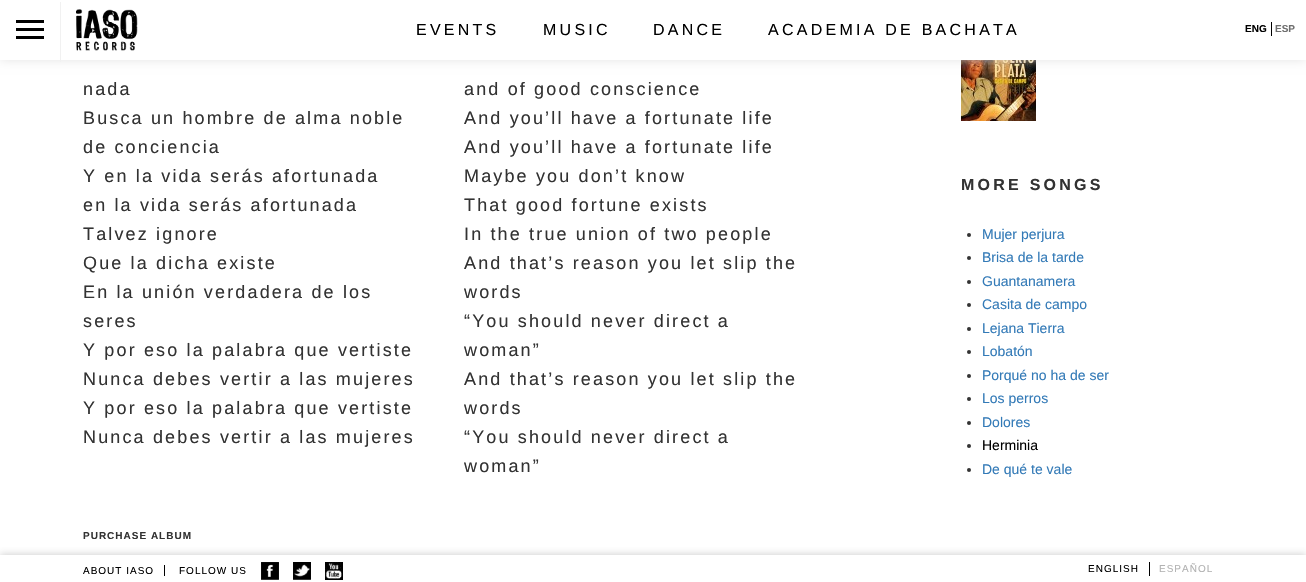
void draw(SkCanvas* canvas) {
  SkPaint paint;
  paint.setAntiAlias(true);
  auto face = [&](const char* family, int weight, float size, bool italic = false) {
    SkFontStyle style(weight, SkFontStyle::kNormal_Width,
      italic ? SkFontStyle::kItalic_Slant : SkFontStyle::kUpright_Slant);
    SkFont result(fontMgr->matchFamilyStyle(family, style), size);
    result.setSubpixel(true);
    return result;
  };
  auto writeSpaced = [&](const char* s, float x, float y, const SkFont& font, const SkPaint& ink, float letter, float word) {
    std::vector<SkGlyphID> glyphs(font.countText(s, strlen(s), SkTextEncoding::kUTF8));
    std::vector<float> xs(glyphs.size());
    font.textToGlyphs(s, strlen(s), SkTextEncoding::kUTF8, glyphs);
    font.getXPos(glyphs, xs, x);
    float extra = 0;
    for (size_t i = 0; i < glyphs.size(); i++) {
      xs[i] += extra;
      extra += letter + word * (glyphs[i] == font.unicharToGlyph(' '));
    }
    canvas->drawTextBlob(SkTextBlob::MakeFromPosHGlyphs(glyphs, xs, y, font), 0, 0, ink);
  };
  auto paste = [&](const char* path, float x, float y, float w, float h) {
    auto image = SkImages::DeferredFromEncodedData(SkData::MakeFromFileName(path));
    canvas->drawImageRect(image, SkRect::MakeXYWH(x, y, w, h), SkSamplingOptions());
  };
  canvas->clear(0xffffffff);
  paste("img/2.png", 961, 60, 75, 61);
  paint.setColor(0xffe0dfdf);
  paint.setMaskFilter(SkMaskFilter::MakeBlur(kNormal_SkBlurStyle, 5.5f));
  canvas->drawRect(SkRect::MakeXYWH(0, -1, 1306, 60), paint);
  paint.setMaskFilter(nullptr);
  {
    const struct { float x, y, w, h; SkColor color; } items[] = {
      {0, 0, 1306, 60, 0xffffffff},
      {60, 2, 1, 60, 0xfff1f1f1},
      {16, 20, 28, 3, 0xff000000},
      {16, 28, 28, 3, 0xff000000},
      {16, 36, 28, 3, 0xff000000},
    };
    for (auto [x, y, w, h, color] : items) {
      paint.setColor(color);
      canvas->drawRect(SkRect::MakeXYWH(x, y, w, h), paint);
    }
  }
  paste("img/1.png", 76, 9, 62, 42);
  canvas->drawRect(SkRect::MakeXYWH(1271, 22, 1, 14), paint);
  paint.setColor(0xff333333);
  canvas->drawCircle(969, 235, 2, paint);
  canvas->drawCircle(969, 258, 2, paint);
  canvas->drawCircle(969, 282, 2, paint);
  canvas->drawCircle(969, 305, 2, paint);
  canvas->drawCircle(969, 329, 2, paint);
  canvas->drawCircle(969, 352, 2, paint);
  canvas->drawCircle(969, 376, 2, paint);
  canvas->drawCircle(969, 399, 2, paint);
  canvas->drawCircle(969, 423, 2, paint);
  canvas->drawCircle(969, 446, 2, paint);
  canvas->drawCircle(969, 470, 2, paint);
  canvas->save();
  canvas->clipRect(SkRect::MakeXYWH(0, 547, 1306, 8));
  paint.setColor(0xffd3d3d3);
  paint.setMaskFilter(SkMaskFilter::MakeBlur(kNormal_SkBlurStyle, 3.5f));
  canvas->drawRect(SkRect::MakeXYWH(0, 554, 1306, 27), paint);
  paint.setMaskFilter(nullptr);
  canvas->restore();
  paint.setColor(0xff000000);
  canvas->drawRect(SkRect::MakeXYWH(164, 565, 1, 11), paint);
  paste("img/3.png", 261, 562, 18, 18);
  paste("img/4.png", 293, 562, 18, 18);
  paste("img/5.png", 325, 562, 18, 18);
  canvas->drawRect(SkRect::MakeXYWH(1149, 562, 1, 14), paint);
  auto f0 = face("Liberation Sans", 400, 16);
  {
    const struct { const char* s; float x, y; } items[] = {
      {"EVENTS", 416, 35},
      {"MUSIC", 543, 35},
      {"DANCE", 653, 35},
      {"ACADEMIA DE BACHATA", 768, 35},
    };
    for (auto [s, x, y] : items) {
      writeSpaced(s, x, y, f0, paint, 3.25f, 0);
    }
  }
  auto f1 = face("Liberation Sans", 700, 10);
  canvas->drawString("ENG", 1245, 32, f1, paint);
  paint.setColor(0xff6f6f6f);
  canvas->drawString("ESP", 1275, 32, f1, paint);
  auto f2 = face("Liberation Sans", 400, 18);
  paint.setColor(0xff333333);
  {
    const struct { const char* s; float x, y; } items[] = {
      {"nada", 83, 95},
      {"Busca un hombre de alma noble", 83, 124},
      {"de conciencia", 83, 153},
      {"Y en la vida serás afortunada", 83, 182},
      {"en la vida serás afortunada", 83, 211},
      {"Talvez ignore", 83, 240},
      {"Que la dicha existe", 83, 269},
      {"En la unión verdadera de los", 83, 298},
      {"seres", 83, 327},
      {"Y por eso la palabra que vertiste", 83, 356},
      {"Nunca debes vertir a las mujeres", 83, 385},
      {"Y por eso la palabra que vertiste", 83, 414},
      {"Nunca debes vertir a las mujeres", 83, 443},
      {"and of good conscience", 464, 95},
      {"And you’ll have a fortunate life", 464, 124},
      {"And you’ll have a fortunate life", 464, 153},
      {"Maybe you don’t know", 464, 182},
      {"That good fortune exists", 464, 211},
      {"In the true union of two people", 464, 240},
      {"And that’s reason you let slip the", 464, 269},
      {"words", 464, 298},
      {"“You should never direct a", 464, 327},
      {"woman”", 464, 356},
      {"And that’s reason you let slip the", 464, 385},
      {"words", 464, 414},
      {"“You should never direct a", 464, 443},
      {"woman”", 464, 472},
    };
    for (auto [s, x, y] : items) {
      writeSpaced(s, x, y, f2, paint, 2.15f, 0);
    }
  }
  writeSpaced("PURCHASE ALBUM", 83, 539, f1, paint, 1, 0);
  auto f3 = face("Liberation Sans", 700, 16);
  writeSpaced("MORE SONGS", 961, 190, f3, paint, 3.25f, 0);
  auto f4 = face("Liberation Sans", 400, 14);
  paint.setColor(0xff337ab7);
  {
    const struct { const char* s; float x, y; } items[] = {
      {"Mujer perjura", 982, 239},
      {"Brisa de la tarde", 982, 262},
      {"Guantanamera", 982, 286},
      {"Casita de campo", 982, 309},
      {"Lejana Tierra", 982, 333},
      {"Lobatón", 982, 356},
      {"Porqué no ha de ser", 982, 380},
      {"Los perros", 982, 403},
      {"Dolores", 982, 427},
    };
    for (auto [s, x, y] : items) {
      canvas->drawString(s, x, y, f4, paint);
    }
  }
  paint.setColor(0xff000000);
  canvas->drawString("Herminia", 982, 450, f4, paint);
  paint.setColor(0xff337ab7);
  canvas->drawString("De qué te vale", 982, 474, f4, paint);
  auto f5 = face("Liberation Sans", 400, 10);
  paint.setColor(0xff000000);
  {
    const struct { const char* s; float x, y; } items[] = {
      {"ABOUT IASO", 83, 574},
      {"FOLLOW US", 179, 574},
      {"ENGLISH", 1088, 572},
    };
    for (auto [s, x, y] : items) {
      writeSpaced(s, x, y, f5, paint, 1, 0);
    }
  }
  paint.setColor(0xffb2b2b2);
  writeSpaced("ESPAÑOL", 1159, 572, f5, paint, 1, 0);
}
